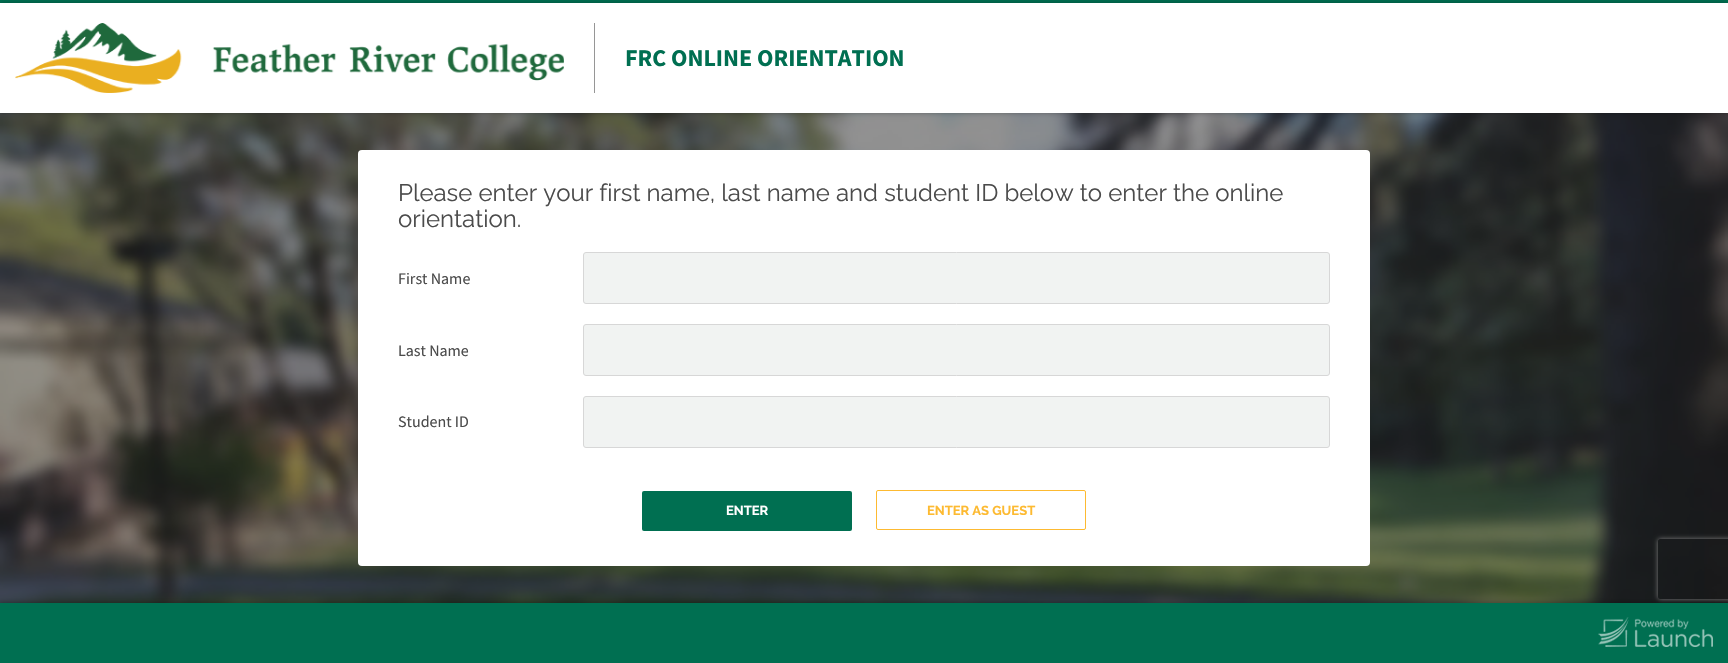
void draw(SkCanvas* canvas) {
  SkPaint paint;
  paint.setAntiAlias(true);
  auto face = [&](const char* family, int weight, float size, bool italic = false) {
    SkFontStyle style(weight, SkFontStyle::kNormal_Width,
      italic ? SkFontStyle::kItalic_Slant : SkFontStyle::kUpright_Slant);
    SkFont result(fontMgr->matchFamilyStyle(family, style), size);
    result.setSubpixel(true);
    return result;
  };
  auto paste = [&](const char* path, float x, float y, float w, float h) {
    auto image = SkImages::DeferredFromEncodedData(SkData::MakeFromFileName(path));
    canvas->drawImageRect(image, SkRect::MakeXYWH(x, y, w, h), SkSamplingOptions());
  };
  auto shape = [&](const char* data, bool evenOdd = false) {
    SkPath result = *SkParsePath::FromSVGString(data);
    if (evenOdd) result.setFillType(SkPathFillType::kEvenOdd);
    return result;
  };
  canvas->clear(0xffffffff);
  paint.setColor(0xff006f51);
  canvas->drawRect(SkRect::MakeXYWH(0, 0, 1728, 3), paint);
  paste("img/2.png", 0, 113, 1728, 490);
  paint.setColor(0x4d000000);
  paint.setMaskFilter(SkMaskFilter::MakeBlur(kNormal_SkBlurStyle, 2.5f));
  canvas->drawRect(SkRect::MakeXYWH(0, 3, 1728, 110), paint);
  paint.setMaskFilter(nullptr);
  paint.setColor(0xffffffff);
  canvas->drawRect(SkRect::MakeXYWH(0, 3, 1728, 110), paint);
  paste("img/1.png", 15, 23, 549, 70);
  paint.setColor(0xff969696);
  canvas->drawRect(SkRect::MakeXYWH(594, 23, 1, 70), paint);
  paint.setColor(0xffffffff);
  canvas->drawRoundRect(SkRect::MakeXYWH(358, 150, 1012, 416), 4, 4, paint);
  paint.setColor(0xfff1f3f2);
  canvas->drawRoundRect(SkRect::MakeXYWH(583.5f, 252.5f, 746, 51), 2.5f, 2.5f, paint);
  paint.setStroke(true);
  paint.setStrokeWidth(1);
  paint.setColor(0xffd7d7d7);
  canvas->drawRoundRect(SkRect::MakeXYWH(583.5f, 252.5f, 746, 51), 2.5f, 2.5f, paint);
  paint.setStroke(false);
  paint.setColor(0xfff1f3f2);
  canvas->drawRoundRect(SkRect::MakeXYWH(583.5f, 324.5f, 746, 51), 2.5f, 2.5f, paint);
  paint.setStroke(true);
  paint.setColor(0xffd7d7d7);
  canvas->drawRoundRect(SkRect::MakeXYWH(583.5f, 324.5f, 746, 51), 2.5f, 2.5f, paint);
  paint.setStroke(false);
  paint.setColor(0xfff1f3f2);
  canvas->drawRoundRect(SkRect::MakeXYWH(583.5f, 396.5f, 746, 51), 2.5f, 2.5f, paint);
  paint.setStroke(true);
  paint.setColor(0xffd7d7d7);
  canvas->drawRoundRect(SkRect::MakeXYWH(583.5f, 396.5f, 746, 51), 2.5f, 2.5f, paint);
  paint.setStroke(false);
  paint.setColor(0xff006f51);
  canvas->drawRoundRect(SkRect::MakeXYWH(642, 491, 210, 40), 2, 2, paint);
  paint.setStroke(true);
  paint.setColor(0xfffdba31);
  canvas->drawRoundRect(SkRect::MakeXYWH(876.5f, 490.5f, 209, 39), 1.5f, 1.5f, paint);
  canvas->save();
  canvas->clipPath(shape("M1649 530H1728V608H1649ZM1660 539H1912C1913 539 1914 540 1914 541V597C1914 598 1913 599 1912 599H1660C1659 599 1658 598 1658 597V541C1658 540 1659 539 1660 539Z", true), true);
  paint.setStroke(false);
  paint.setColor(0xff808080);
  paint.setMaskFilter(SkMaskFilter::MakeBlur(kNormal_SkBlurStyle, 2.5f));
  canvas->drawRoundRect(SkRect::MakeXYWH(1658, 539, 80, 60), 2, 2, paint);
  paint.setMaskFilter(nullptr);
  canvas->restore();
  paint.setColor(0x4d000000);
  paint.setMaskFilter(SkMaskFilter::MakeBlur(kNormal_SkBlurStyle, 2.5f));
  canvas->drawRect(SkRect::MakeXYWH(0, 603, 1728, 60), paint);
  paint.setMaskFilter(nullptr);
  paint.setColor(0xff006f51);
  canvas->drawRect(SkRect::MakeXYWH(0, 603, 1728, 60), paint);
  paste("img/3.png", 1598, 617, 115, 30);
  auto f0 = face("Source Sans Pro", 700, 24);
  canvas->drawString("FRC ONLINE ORIENTATION", 625, 66, f0, paint);
  auto f1 = face("Raleway", 400, 24);
  paint.setColor(0xff4b4b4b);
  canvas->drawString("Please enter your first name, last name and student ID below to enter the online", 398, 201, f1, paint);
  canvas->drawString("orientation.", 398, 227, f1, paint);
  auto f2 = face("Source Sans Pro", 400, 16);
  {
    const struct { const char* s; float x, y; } items[] = {
      {"First Name", 398, 284},
      {"Last Name", 398, 356},
      {"Student ID", 398, 427},
    };
    for (auto [s, x, y] : items) {
      canvas->drawString(s, x, y, f2, paint);
    }
  }
  auto f3 = face("Raleway", 700, 13);
  paint.setColor(0xffffffff);
  canvas->drawString("ENTER", 726, 515, f3, paint);
  paint.setColor(0xfffdba31);
  canvas->drawString("ENTER AS GUEST", 927, 515, f3, paint);
}
